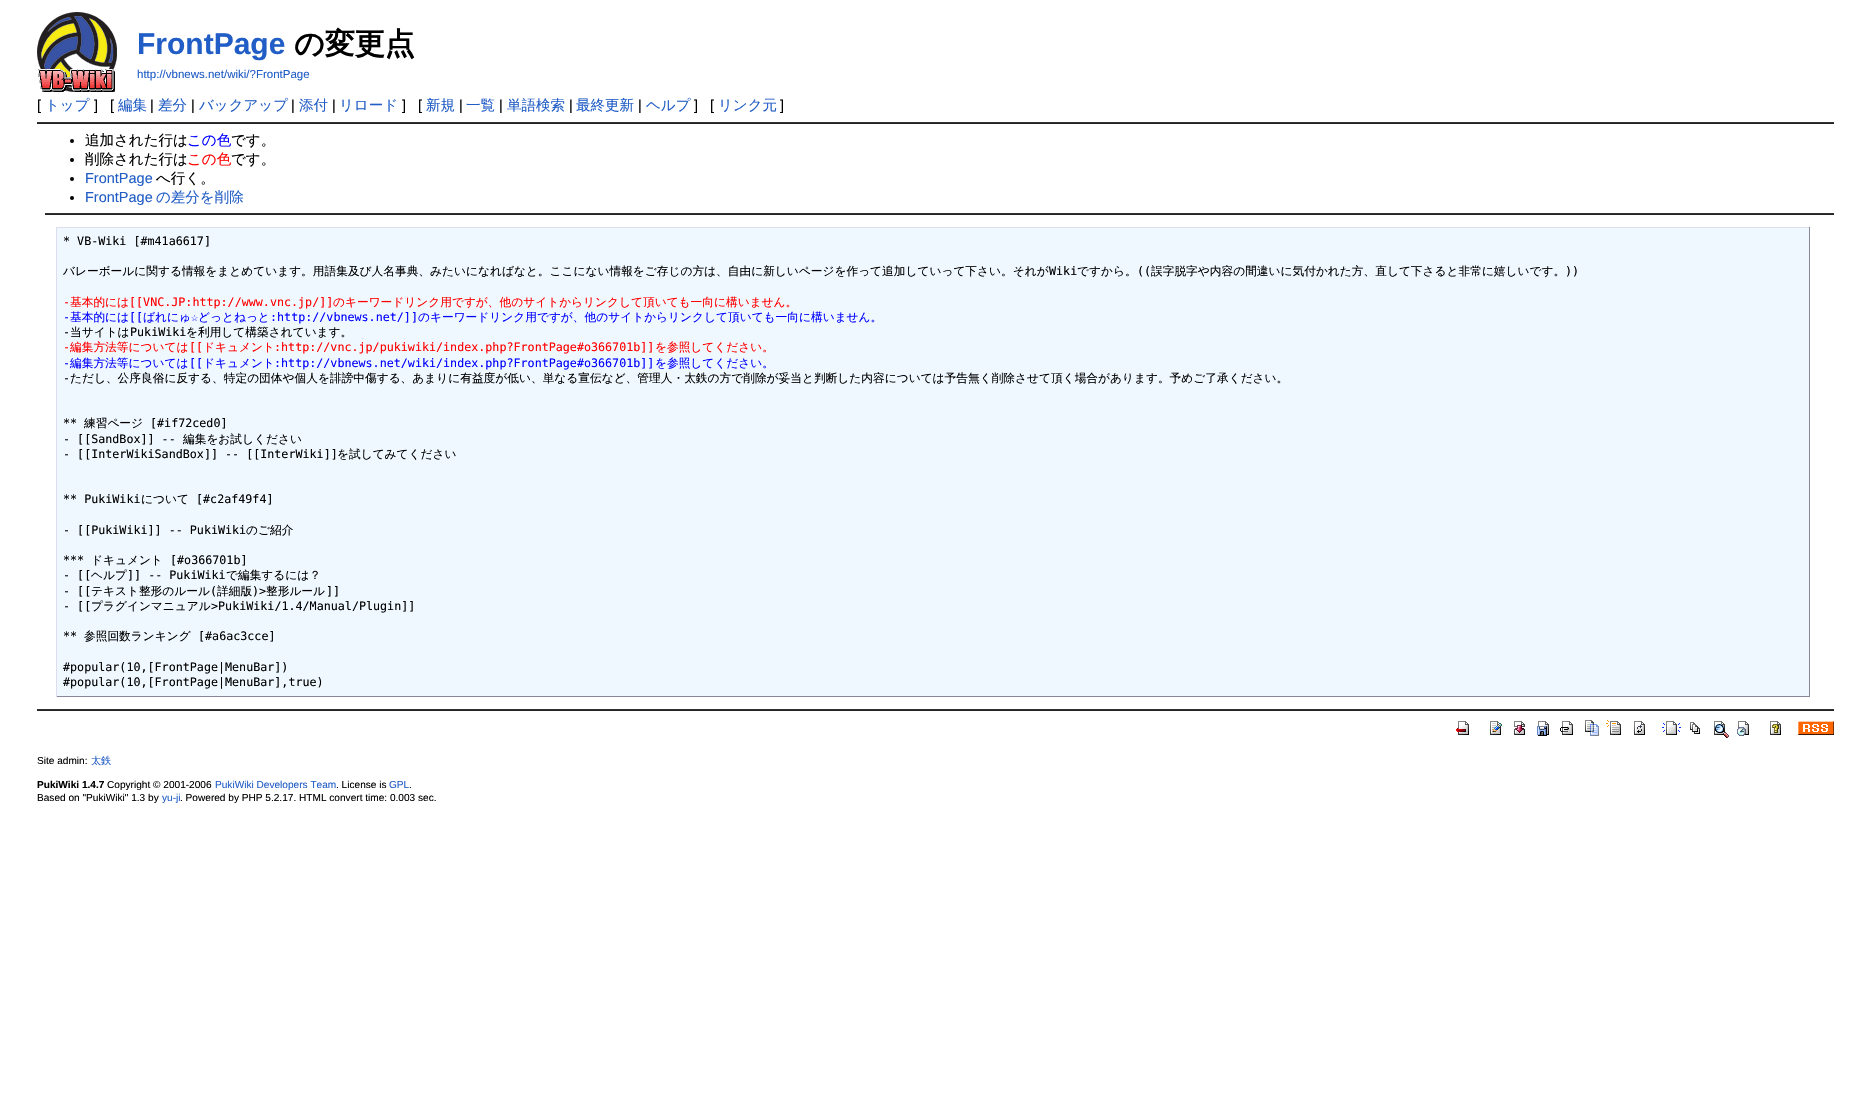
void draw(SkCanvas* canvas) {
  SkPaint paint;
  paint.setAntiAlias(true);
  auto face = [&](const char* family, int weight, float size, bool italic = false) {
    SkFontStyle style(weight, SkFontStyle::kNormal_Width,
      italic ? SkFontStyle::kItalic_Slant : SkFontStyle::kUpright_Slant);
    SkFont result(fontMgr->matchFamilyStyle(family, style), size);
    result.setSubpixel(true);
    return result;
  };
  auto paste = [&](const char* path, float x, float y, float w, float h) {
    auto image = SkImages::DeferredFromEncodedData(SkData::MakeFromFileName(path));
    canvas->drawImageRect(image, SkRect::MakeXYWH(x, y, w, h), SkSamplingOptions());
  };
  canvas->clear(0xffffffff);
  paste("img/1.png", 37, 12, 80, 80);
  paint.setColor(0xff333333);
  canvas->drawRect(SkRect::MakeXYWH(37, 122, 1797, 1), paint);
  paint.setColor(0xff222222);
  canvas->drawRect(SkRect::MakeXYWH(37, 123, 1797, 1), paint);
  paint.setColor(0xff000000);
  canvas->drawCircle(72, 141, 2, paint);
  canvas->drawCircle(72, 160, 2, paint);
  canvas->drawCircle(72, 179, 2, paint);
  canvas->drawCircle(72, 198, 2, paint);
  {
    const struct { float x, y, w, h; SkColor color; } items[] = {
      {45, 213, 1789, 1, 0xff333333},
      {45, 214, 1789, 1, 0xff222222},
      {57, 228, 1752, 468, 0xfff0f8ff},
      {56, 227, 1754, 1, 0xffddddee},
      {1809, 227, 1, 470, 0xff888899},
      {56, 696, 1754, 1, 0xff888899},
      {56, 227, 1, 470, 0xffddddee},
      {37, 709, 1797, 1, 0xff333333},
      {37, 710, 1797, 1, 0xff222222},
    };
    for (auto [x, y, w, h, color] : items) {
      paint.setColor(color);
      canvas->drawRect(SkRect::MakeXYWH(x, y, w, h), paint);
    }
  }
  paste("img/2.png", 1456, 721, 13, 14);
  paste("img/3.png", 1490, 721, 12, 14);
  paste("img/4.png", 1514, 721, 11, 14);
  paste("img/5.png", 1537, 721, 12, 15);
  paste("img/6.png", 1560, 721, 13, 14);
  paste("img/7.png", 1585, 720, 14, 16);
  paste("img/8.png", 1606, 720, 15, 15);
  paste("img/9.png", 1634, 721, 11, 14);
  paste("img/10.png", 1662, 721, 19, 14);
  paste("img/11.png", 1690, 722, 10, 12);
  paste("img/12.png", 1714, 721, 15, 17);
  paste("img/13.png", 1737, 721, 12, 15);
  paste("img/14.png", 1770, 721, 11, 14);
  paste("img/15.png", 1798, 721, 36, 14);
  auto f0 = face("Liberation Sans", 700, 30);
  paint.setColor(0xff215dc6);
  canvas->drawString("FrontPage", 137, 54, f0, paint);
  auto f1 = face("WenQuanYi Zen Hei", 700, 30);
  paint.setColor(0xff000000);
  canvas->drawString("の変更点", 294, 54, f1, paint);
  auto f2 = face("Liberation Sans", 400, 11.5f);
  paint.setColor(0xff215dc6);
  canvas->drawString("http://vbnews.net/wiki/?FrontPage", 137, 78, f2, paint);
  auto f3 = face("Liberation Sans", 400, 14.5f);
  paint.setColor(0xff000000);
  canvas->drawString("[", 37, 110, f3, paint);
  auto f4 = face("WenQuanYi Zen Hei", 500, 14.5f);
  paint.setColor(0xff215dc6);
  canvas->drawString("トップ", 45, 110, f4, paint);
  paint.setColor(0xff000000);
  canvas->drawString("]", 94, 110, f3, paint);
  canvas->drawString("[", 110, 110, f3, paint);
  paint.setColor(0xff215dc6);
  canvas->drawString("編集", 118, 110, f4, paint);
  paint.setColor(0xff000000);
  canvas->drawString("|", 150, 110, f3, paint);
  paint.setColor(0xff215dc6);
  canvas->drawString("差分", 158, 110, f4, paint);
  paint.setColor(0xff000000);
  canvas->drawString("|", 191, 110, f3, paint);
  paint.setColor(0xff215dc6);
  canvas->drawString("バックアップ", 199, 110, f4, paint);
  paint.setColor(0xff000000);
  canvas->drawString("|", 291, 110, f3, paint);
  paint.setColor(0xff215dc6);
  canvas->drawString("添付", 299, 110, f4, paint);
  paint.setColor(0xff000000);
  canvas->drawString("|", 332, 110, f3, paint);
  paint.setColor(0xff215dc6);
  canvas->drawString("リロード", 339, 110, f4, paint);
  paint.setColor(0xff000000);
  canvas->drawString("]", 402, 110, f3, paint);
  canvas->drawString("[", 418, 110, f3, paint);
  paint.setColor(0xff215dc6);
  canvas->drawString("新規", 426, 110, f4, paint);
  paint.setColor(0xff000000);
  canvas->drawString("|", 459, 110, f3, paint);
  paint.setColor(0xff215dc6);
  canvas->drawString("一覧", 466, 110, f4, paint);
  paint.setColor(0xff000000);
  canvas->drawString("|", 499, 110, f3, paint);
  paint.setColor(0xff215dc6);
  canvas->drawString("単語検索", 507, 110, f4, paint);
  paint.setColor(0xff000000);
  canvas->drawString("|", 569, 110, f3, paint);
  paint.setColor(0xff215dc6);
  canvas->drawString("最終更新", 576, 110, f4, paint);
  paint.setColor(0xff000000);
  canvas->drawString("|", 638, 110, f3, paint);
  paint.setColor(0xff215dc6);
  canvas->drawString("ヘルプ", 646, 110, f4, paint);
  paint.setColor(0xff000000);
  canvas->drawString("]", 694, 110, f3, paint);
  canvas->drawString("[", 710, 110, f3, paint);
  paint.setColor(0xff215dc6);
  canvas->drawString("リンク元", 718, 110, f4, paint);
  paint.setColor(0xff000000);
  canvas->drawString("]", 780, 110, f3, paint);
  canvas->drawString("追加された行は", 85, 145, f4, paint);
  paint.setColor(0xff0000ff);
  canvas->drawString("この色", 187, 145, f4, paint);
  paint.setColor(0xff000000);
  canvas->drawString("です。", 231, 145, f4, paint);
  canvas->drawString("削除された行は", 85, 164, f4, paint);
  paint.setColor(0xffff0000);
  canvas->drawString("この色", 187, 164, f4, paint);
  paint.setColor(0xff000000);
  canvas->drawString("です。", 231, 164, f4, paint);
  paint.setColor(0xff215dc6);
  canvas->drawString("FrontPage", 85, 183, f3, paint);
  paint.setColor(0xff000000);
  canvas->drawString("へ行く。", 156, 183, f4, paint);
  paint.setColor(0xff215dc6);
  canvas->drawString("FrontPage", 85, 202, f3, paint);
  canvas->drawString("の差分を削除", 156, 202, f4, paint);
  auto f5 = face("DejaVu Sans Mono", 400, 11.7f);
  paint.setColor(0xff000000);
  canvas->drawString("* VB-Wiki [#m41a6617]", 63, 245, f5, paint);
  auto f6 = face("WenQuanYi Zen Hei", 500, 11.7f);
  canvas->drawString("バレーボールに関する情報をまとめています。用語集及び人名事典、みたいになればなと。ここにない情報をご存じの方は、自由に新しいページを作って追加していって下さい。それが", 63, 275, f6, paint);
  canvas->drawString("Wiki", 1049, 275, f5, paint);
  canvas->drawString("ですから。", 1077, 275, f6, paint);
  canvas->drawString("((", 1137, 275, f5, paint);
  canvas->drawString("誤字脱字や内容の間違いに気付かれた方、直して下さると非常に嬉しいです。", 1151, 275, f6, paint);
  canvas->drawString("))", 1565, 275, f5, paint);
  paint.setColor(0xffff0000);
  canvas->drawString("-", 63, 306, f5, paint);
  canvas->drawString("基本的には", 70, 306, f6, paint);
  canvas->drawString("[[VNC.JP:http://www.vnc.jp/]]", 129, 306, f5, paint);
  canvas->drawString("のキーワードリンク用ですが、他のサイトからリンクして頂いても一向に構いません。", 333, 306, f6, paint);
  paint.setColor(0xff0000ff);
  canvas->drawString("-", 63, 321, f5, paint);
  canvas->drawString("基本的には", 70, 321, f6, paint);
  canvas->drawString("[[", 129, 321, f5, paint);
  canvas->drawString("ばれにゅ", 143, 321, f6, paint);
  canvas->drawString("☆", 191, 321, f5, paint);
  canvas->drawString("どっとねっと", 198, 321, f6, paint);
  canvas->drawString(":http://vbnews.net/]]", 270, 321, f5, paint);
  canvas->drawString("のキーワードリンク用ですが、他のサイトからリンクして頂いても一向に構いません。", 418, 321, f6, paint);
  paint.setColor(0xff000000);
  canvas->drawString("-", 63, 336, f5, paint);
  canvas->drawString("当サイトは", 70, 336, f6, paint);
  canvas->drawString("PukiWiki", 130, 336, f5, paint);
  canvas->drawString("を利用して構築されています。", 186, 336, f6, paint);
  paint.setColor(0xffff0000);
  canvas->drawString("-", 63, 351, f5, paint);
  canvas->drawString("編集方法等については", 70, 351, f6, paint);
  canvas->drawString("[[", 189, 351, f5, paint);
  canvas->drawString("ドキュメント", 203, 351, f6, paint);
  canvas->drawString(":http://vnc.jp/pukiwiki/index.php?FrontPage#o366701b]]", 274, 351, f5, paint);
  canvas->drawString("を参照してください。", 655, 351, f6, paint);
  paint.setColor(0xff0000ff);
  canvas->drawString("-", 63, 367, f5, paint);
  canvas->drawString("編集方法等については", 70, 367, f6, paint);
  canvas->drawString("[[", 189, 367, f5, paint);
  canvas->drawString("ドキュメント", 203, 367, f6, paint);
  canvas->drawString(":http://vbnews.net/wiki/index.php?FrontPage#o366701b]]", 274, 367, f5, paint);
  canvas->drawString("を参照してください。", 655, 367, f6, paint);
  paint.setColor(0xff000000);
  canvas->drawString("-", 63, 382, f5, paint);
  canvas->drawString("ただし、公序良俗に反する、特定の団体や個人を誹謗中傷する、あまりに有益度が低い、単なる宣伝など、管理人・太鉄の方で削除が妥当と判断した内容については予告無く削除させて頂く場合があります。予めご了承ください。", 70, 382, f6, paint);
  canvas->drawString("**", 63, 427, f5, paint);
  canvas->drawString("練習ページ", 84, 427, f6, paint);
  canvas->drawString("[#if72ced0]", 150, 427, f5, paint);
  canvas->drawString("- [[SandBox]] --", 63, 443, f5, paint);
  canvas->drawString("編集をお試しください", 183, 443, f6, paint);
  canvas->drawString("- [[InterWikiSandBox]] -- [[InterWiki]]", 63, 458, f5, paint);
  canvas->drawString("を試してみてください", 337, 458, f6, paint);
  canvas->drawString("** PukiWiki", 63, 503, f5, paint);
  canvas->drawString("について", 141, 503, f6, paint);
  canvas->drawString("[#c2af49f4]", 196, 503, f5, paint);
  canvas->drawString("- [[PukiWiki]] -- PukiWiki", 63, 534, f5, paint);
  canvas->drawString("のご紹介", 246, 534, f6, paint);
  canvas->drawString("***", 63, 564, f5, paint);
  canvas->drawString("ドキュメント", 91, 564, f6, paint);
  canvas->drawString("[#o366701b]", 170, 564, f5, paint);
  canvas->drawString("- [[", 63, 579, f5, paint);
  canvas->drawString("ヘルプ", 91, 579, f6, paint);
  canvas->drawString("]] -- PukiWiki", 127, 579, f5, paint);
  canvas->drawString("で編集するには？", 226, 579, f6, paint);
  canvas->drawString("- [[", 63, 595, f5, paint);
  canvas->drawString("テキスト整形のルール", 91, 595, f6, paint);
  canvas->drawString("(", 210, 595, f5, paint);
  canvas->drawString("詳細版", 217, 595, f6, paint);
  canvas->drawString(")>", 252, 595, f5, paint);
  canvas->drawString("整形ルール", 266, 595, f6, paint);
  canvas->drawString("]]", 326, 595, f5, paint);
  canvas->drawString("- [[", 63, 610, f5, paint);
  canvas->drawString("プラグインマニュアル", 91, 610, f6, paint);
  canvas->drawString(">PukiWiki/1.4/Manual/Plugin]]", 211, 610, f5, paint);
  canvas->drawString("**", 63, 640, f5, paint);
  canvas->drawString("参照回数ランキング", 84, 640, f6, paint);
  {
    const struct { const char* s; float x, y; } items[] = {
      {"[#a6ac3cce]", 198, 640},
      {"#popular(10,[FrontPage|MenuBar])", 63, 671},
      {"#popular(10,[FrontPage|MenuBar],true)", 63, 686},
    };
    for (auto [s, x, y] : items) {
      canvas->drawString(s, x, y, f5, paint);
    }
  }
  auto f7 = face("Liberation Sans", 400, 10.1f);
  canvas->drawString("Site admin:", 37, 764, f7, paint);
  auto f8 = face("WenQuanYi Zen Hei", 500, 10.1f);
  paint.setColor(0xff215dc6);
  canvas->drawString("太鉄", 91, 764, f8, paint);
  auto f9 = face("Liberation Sans", 700, 10.1f);
  paint.setColor(0xff000000);
  canvas->drawString("PukiWiki 1.4.7", 37, 788, f9, paint);
  canvas->drawString("Copyright © 2001-2006", 107, 788, f7, paint);
  paint.setColor(0xff215dc6);
  canvas->drawString("PukiWiki Developers Team", 215, 788, f7, paint);
  paint.setColor(0xff000000);
  canvas->drawString(". License is", 336, 788, f7, paint);
  paint.setColor(0xff215dc6);
  canvas->drawString("GPL", 389, 788, f7, paint);
  paint.setColor(0xff000000);
  canvas->drawString(".", 409, 788, f7, paint);
  canvas->drawString("Based on \"PukiWiki\" 1.3 by", 37, 801, f7, paint);
  paint.setColor(0xff215dc6);
  canvas->drawString("yu-ji", 162, 801, f7, paint);
  paint.setColor(0xff000000);
  canvas->drawString(". Powered by PHP 5.2.17. HTML convert time: 0.003 sec.", 180, 801, f7, paint);
}
